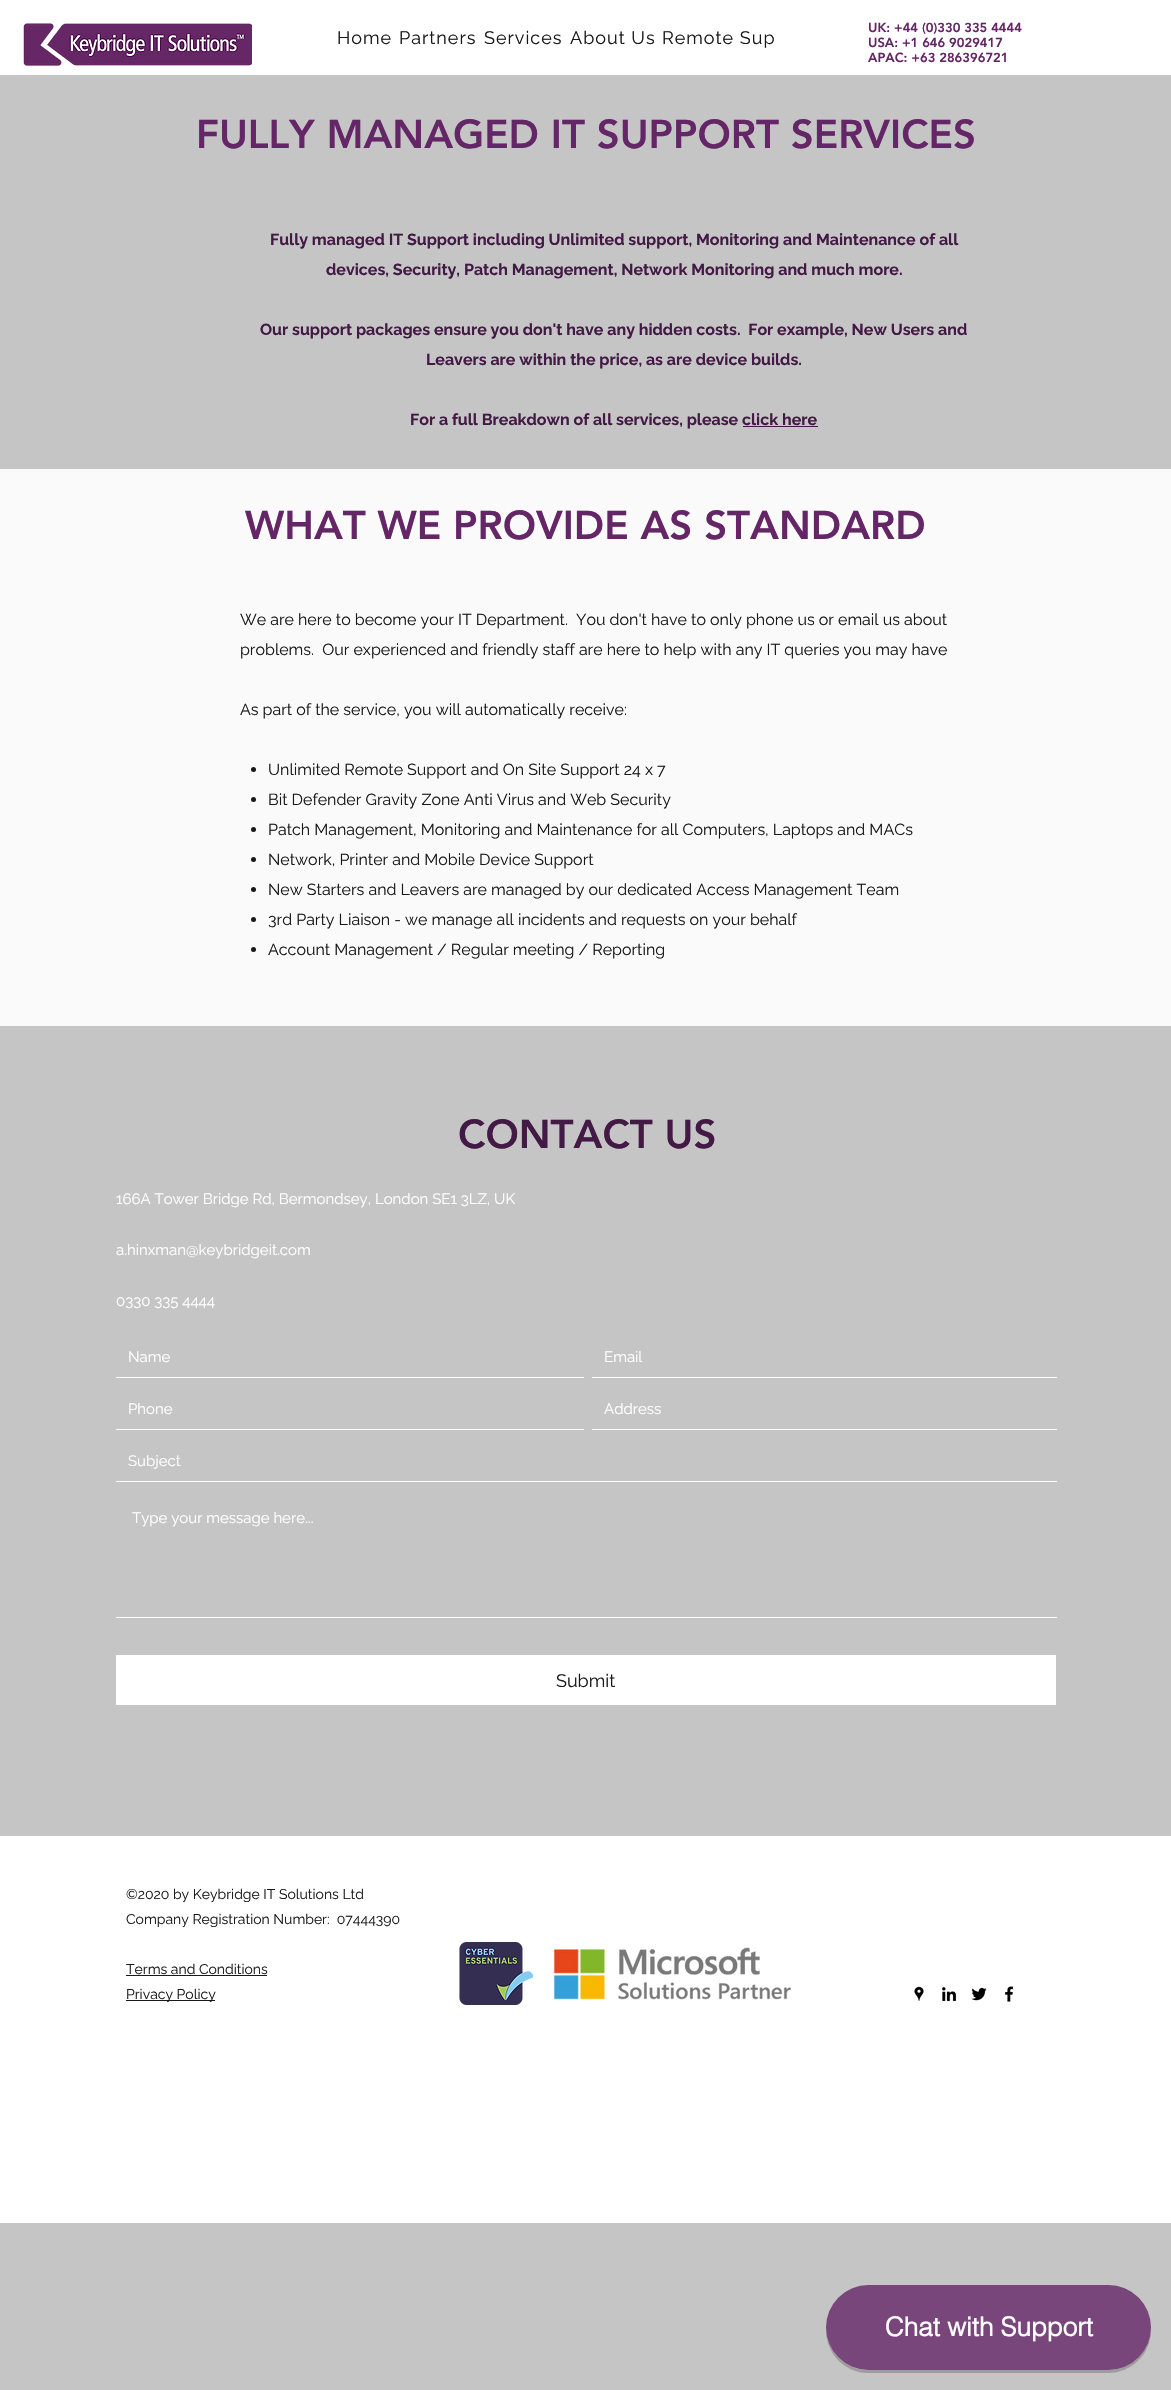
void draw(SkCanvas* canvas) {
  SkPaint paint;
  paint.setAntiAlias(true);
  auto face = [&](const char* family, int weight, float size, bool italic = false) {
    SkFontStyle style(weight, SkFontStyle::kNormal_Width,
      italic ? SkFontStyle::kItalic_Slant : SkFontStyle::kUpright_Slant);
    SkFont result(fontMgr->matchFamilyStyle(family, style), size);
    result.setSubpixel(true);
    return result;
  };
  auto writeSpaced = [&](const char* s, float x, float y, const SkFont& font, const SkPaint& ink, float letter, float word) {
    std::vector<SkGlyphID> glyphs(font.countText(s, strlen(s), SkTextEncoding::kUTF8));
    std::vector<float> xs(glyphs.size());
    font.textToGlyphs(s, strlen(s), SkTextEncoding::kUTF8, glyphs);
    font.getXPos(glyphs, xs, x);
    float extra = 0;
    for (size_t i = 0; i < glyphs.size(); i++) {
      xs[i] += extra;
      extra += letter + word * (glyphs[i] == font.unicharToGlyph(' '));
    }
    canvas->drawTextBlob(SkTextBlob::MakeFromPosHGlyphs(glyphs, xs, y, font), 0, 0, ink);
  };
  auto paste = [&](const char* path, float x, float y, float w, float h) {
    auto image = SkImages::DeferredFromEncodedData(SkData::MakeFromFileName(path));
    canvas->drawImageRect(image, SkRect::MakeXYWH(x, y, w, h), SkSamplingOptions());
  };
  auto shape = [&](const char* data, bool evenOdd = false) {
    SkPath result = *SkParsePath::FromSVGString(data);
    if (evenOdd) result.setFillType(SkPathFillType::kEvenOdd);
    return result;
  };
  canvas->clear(0xffc5c5c5);
  paint.setColor(0xffffffff);
  canvas->drawRect(SkRect::MakeXYWH(0, 0, 1171, 75), paint);
  paste("img/1.png", 23, 23, 229, 43);
  paint.setColor(0xff431945);
  canvas->drawRect(SkRect::MakeXYWH(743, 426, 75, 1), paint);
  paint.setColor(0xfffafafa);
  canvas->drawRect(SkRect::MakeXYWH(0, 469, 1171, 557), paint);
  paint.setColor(0xff181818);
  canvas->drawCircle(253.5f, 769.5f, 2.5f, paint);
  canvas->drawCircle(253.5f, 799.5f, 2.5f, paint);
  canvas->drawCircle(253.5f, 829.5f, 2.5f, paint);
  canvas->drawCircle(253.5f, 859.5f, 2.5f, paint);
  canvas->drawCircle(253.5f, 889.5f, 2.5f, paint);
  canvas->drawCircle(253.5f, 919.5f, 2.5f, paint);
  canvas->drawCircle(253.5f, 949.5f, 2.5f, paint);
  {
    const struct { float x, y, w, h; SkColor color; } items[] = {
      {116, 1377, 468, 1, 0xffffffff},
      {592, 1377, 465, 1, 0xffffffff},
      {116, 1429, 468, 1, 0xffffffff},
      {592, 1429, 465, 1, 0xffffffff},
      {116, 1481, 941, 1, 0xffffffff},
      {116, 1617, 941, 1, 0xffffffff},
      {116, 1655, 940, 50, 0xffffffff},
      {0, 1836, 1171, 387, 0xffffffff},
      {126, 1975, 141, 1, 0xff181818},
      {126, 2000, 89, 1, 0xff181818},
    };
    for (auto [x, y, w, h, color] : items) {
      paint.setColor(color);
      canvas->drawRect(SkRect::MakeXYWH(x, y, w, h), paint);
    }
  }
  paste("img/2.png", 459, 1942, 74, 63);
  paste("img/3.png", 554, 1947, 237, 53);
  paste("img/4.png", 914, 1986, 10, 15);
  paste("img/5.png", 942, 1987, 15, 15);
  paste("img/6.png", 971, 1987, 16, 14);
  paste("img/7.png", 1005, 1986, 9, 16);
  paint.setColor(0xff9d9d9d);
  canvas->drawPath(shape("M826 2329V2330C826 2354 845 2373 868 2373H1108C1132 2373 1151 2354 1151 2330V2329C1150 2352 1131 2370 1108 2370H868C846 2370 827 2352 826 2329Z"), paint);
  paint.setColor(0xcc642667);
  canvas->drawRoundRect(SkRect::MakeXYWH(826, 2285, 325, 85), 42.5f, 42.5f, paint);
  auto f0 = face("Raleway", 400, 18);
  paint.setColor(0xff181818);
  {
    const struct { const char* s; float x, y; } items[] = {
      {"Home", 337, 44},
      {"Partners", 399, 44},
      {"Services", 484, 44},
      {"About Us", 570, 44},
      {"Remote Sup", 662, 44},
    };
    for (auto [s, x, y] : items) {
      writeSpaced(s, x, y, f0, paint, 1, 0);
    }
  }
  auto f1 = face("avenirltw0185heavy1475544", 900, 13);
  paint.setColor(0xff642667);
  {
    const struct { const char* s; float x, y; } items[] = {
      {"UK: +44 (0)330 335 4444", 868, 32},
      {"USA: +1 646 9029417", 868, 47},
      {"APAC: +63 286396721", 868, 62},
    };
    for (auto [s, x, y] : items) {
      canvas->drawString(s, x, y, f1, paint);
    }
  }
  auto f2 = face("avenirltw0185heavy1475544", 900, 40);
  canvas->drawString("FULLY MANAGED IT SUPPORT SERVICES", 196, 148, f2, paint);
  auto f3 = face("Raleway", 700, 16);
  paint.setColor(0xff431945);
  {
    const struct { const char* s; float x, y; } items[] = {
      {"Fully managed IT Support including Unlimited support, Monitoring and Maintenance of all", 270, 245},
      {"devices, Security, Patch Management, Network Monitoring and much more.", 326, 275},
      {"Our support packages ensure you don't have any hidden costs.  For example, New Users and", 260, 335},
      {"Leavers are within the price, as are device builds.", 426, 365},
      {"For a full Breakdown of all services, please click here", 410, 425},
    };
    for (auto [s, x, y] : items) {
      canvas->drawString(s, x, y, f3, paint);
    }
  }
  paint.setColor(0xff642667);
  canvas->drawString("WHAT WE PROVIDE AS STANDARD", 245, 539, f2, paint);
  auto f4 = face("Raleway", 400, 16);
  paint.setColor(0xff181818);
  {
    const struct { const char* s; float x, y; } items[] = {
      {"We are here to become your IT Department.  You don't have to only phone us or email us about", 240, 625},
      {"problems.  Our experienced and friendly staff are here to help with any IT queries you may have", 240, 655},
      {"As part of the service, you will automatically receive:", 240, 715},
      {"Unlimited Remote Support and On Site Support 24 x 7", 268, 775},
      {"Bit Defender Gravity Zone Anti Virus and Web Security", 268, 805},
      {"Patch Management, Monitoring and Maintenance for all Computers, Laptops and MACs", 268, 835},
      {"Network, Printer and Mobile Device Support", 268, 865},
      {"New Starters and Leavers are managed by our dedicated Access Management Team", 268, 895},
      {"3rd Party Liaison - we manage all incidents and requests on your behalf", 268, 925},
      {"Account Management / Regular meeting / Reporting", 268, 955},
    };
    for (auto [s, x, y] : items) {
      canvas->drawString(s, x, y, f4, paint);
    }
  }
  paint.setColor(0xff431945);
  canvas->drawString("CONTACT US", 458, 1148, f2, paint);
  auto f5 = face("Raleway", 400, 15);
  paint.setColor(0xffffffff);
  {
    const struct { const char* s; float x, y; } items[] = {
      {"166A Tower Bridge Rd, Bermondsey, London SE1 3LZ, UK", 116, 1204},
      {"a.hinxman@keybridgeit.com", 116, 1255},
      {"0330 335 4444", 116, 1306},
      {"Name", 128, 1362},
      {"Email", 604, 1362},
      {"Phone", 128, 1414},
      {"Address", 604, 1414},
      {"Subject", 128, 1466},
      {"Type your message here...", 132, 1523},
    };
    for (auto [s, x, y] : items) {
      canvas->drawString(s, x, y, f5, paint);
    }
  }
  paint.setColor(0xff181818);
  canvas->drawString("Submit", 556, 1687, f0, paint);
  auto f6 = face("Raleway", 400, 14);
  {
    const struct { const char* s; float x, y; } items[] = {
      {"©2020 by Keybridge IT Solutions Ltd", 126, 1899},
      {"Company Registration Number:  07444390", 126, 1924},
      {"Terms and Conditions", 126, 1974},
      {"Privacy Policy", 126, 1999},
    };
    for (auto [s, x, y] : items) {
      canvas->drawString(s, x, y, f6, paint);
    }
  }
  auto f7 = face("helvetica", 700, 26);
  paint.setColor(0xffffffff);
  canvas->drawString("Chat with Support", 885, 2336, f7, paint);
}
